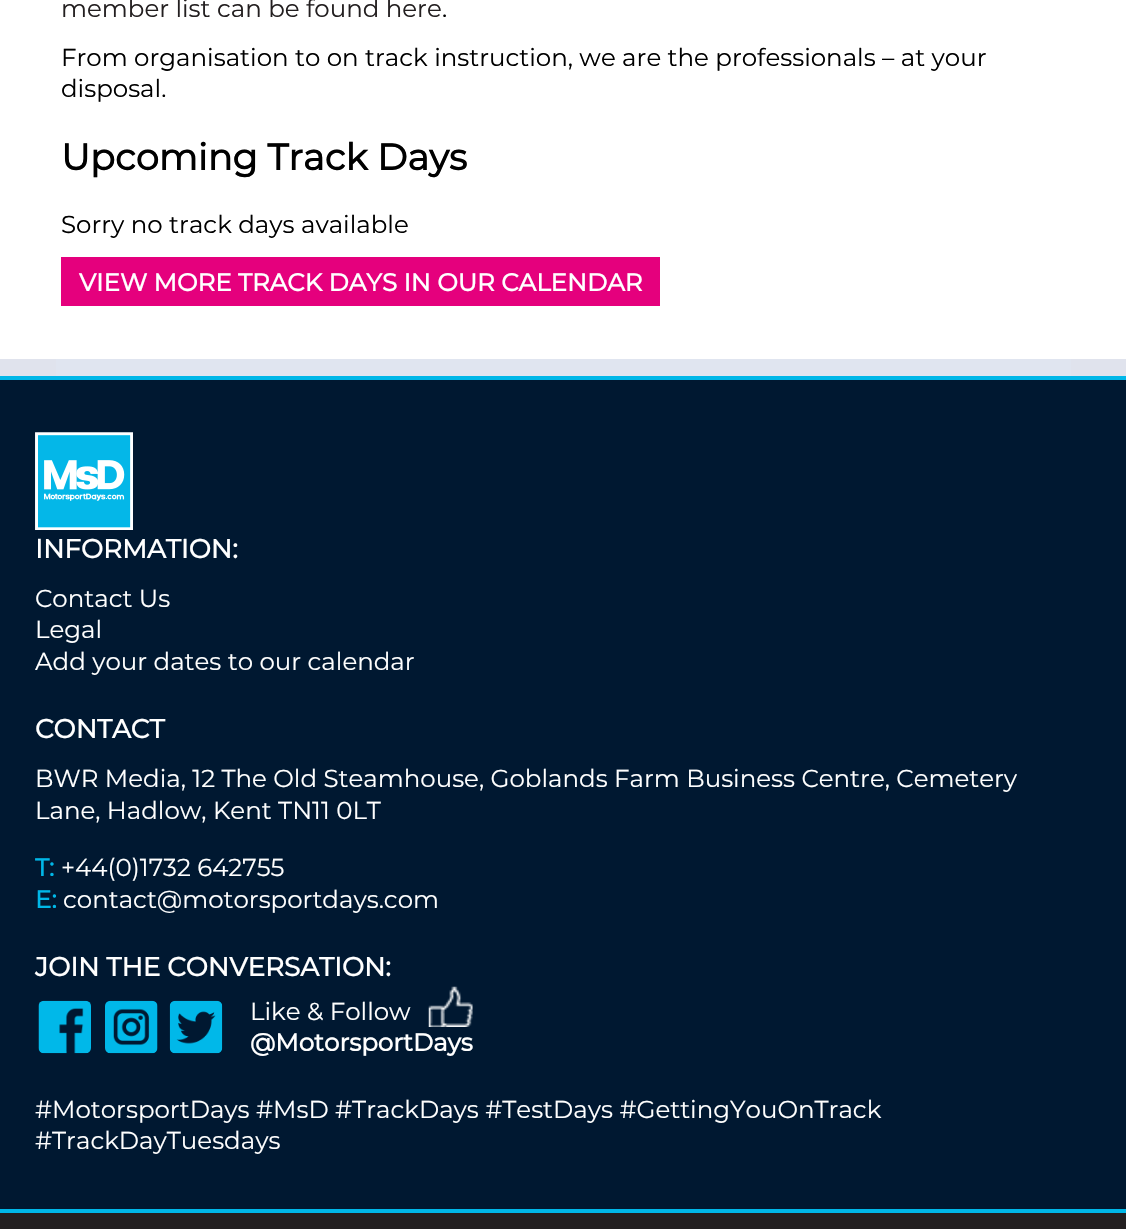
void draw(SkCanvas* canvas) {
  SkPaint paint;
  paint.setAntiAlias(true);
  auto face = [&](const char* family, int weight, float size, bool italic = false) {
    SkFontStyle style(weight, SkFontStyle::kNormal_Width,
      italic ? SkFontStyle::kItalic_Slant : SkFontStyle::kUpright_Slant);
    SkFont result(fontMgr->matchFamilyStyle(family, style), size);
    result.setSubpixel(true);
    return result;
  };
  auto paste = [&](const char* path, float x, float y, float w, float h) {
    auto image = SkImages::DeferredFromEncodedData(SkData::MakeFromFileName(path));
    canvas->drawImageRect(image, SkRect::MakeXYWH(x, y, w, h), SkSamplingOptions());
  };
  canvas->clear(0xffe0e3ed);
  {
    const struct { float x, y, w, h; SkColor color; } items[] = {
      {0, 0, 1126, 359, 0xffffffff},
      {61, 257, 599, 49, 0xffe5007d},
      {56, 359, 1015, 17, 0xffe0e5f0},
      {0, 380, 1126, 829, 0xff001831},
      {0, 376, 1126, 4, 0xff00b7e8},
      {0, 1209, 1126, 4, 0xff00b7e8},
    };
    for (auto [x, y, w, h, color] : items) {
      paint.setColor(color);
      canvas->drawRect(SkRect::MakeXYWH(x, y, w, h), paint);
    }
  }
  paste("img/1.png", 35, 432, 98, 98);
  paste("img/2.png", 38, 1000, 53, 54);
  paste("img/3.png", 105, 1000, 53, 54);
  paste("img/4.png", 169, 1000, 54, 54);
  paste("img/5.png", 428, 986, 45, 41);
  paint.setColor(0xff231f20);
  canvas->drawRect(SkRect::MakeXYWH(0, 1213, 1126, 16), paint);
  auto f0 = face("Montserrat", 100, 24.5f);
  canvas->drawString("member list can be found here", 61, 17, f0, paint);
  paint.setColor(0xff000000);
  {
    const struct { const char* s; float x, y; } items[] = {
      {".", 442, 17},
      {"From organisation to on track instruction, we are the professionals – at your", 61, 66},
      {"disposal.", 61, 97},
    };
    for (auto [s, x, y] : items) {
      canvas->drawString(s, x, y, f0, paint);
    }
  }
  auto f1 = face("Montserrat", 700, 36.75f);
  canvas->drawString("Upcoming Track Days", 61, 170, f1, paint);
  canvas->drawString("Sorry no track days available", 61, 233, f0, paint);
  auto f2 = face("Montserrat", 700, 24.5f);
  paint.setColor(0xffffffff);
  canvas->drawString("VIEW MORE TRACK DAYS IN OUR CALENDAR", 79, 291, f2, paint);
  auto f3 = face("Montserrat", 700, 26.25f);
  canvas->drawString("INFORMATION:", 35, 558, f3, paint);
  {
    const struct { const char* s; float x, y; } items[] = {
      {"Contact Us", 35, 607},
      {"Legal", 35, 638},
      {"Add your dates to our calendar", 35, 670},
    };
    for (auto [s, x, y] : items) {
      canvas->drawString(s, x, y, f0, paint);
    }
  }
  canvas->drawString("CONTACT", 35, 738, f3, paint);
  canvas->drawString("BWR Media, 12 The Old Steamhouse, Goblands Farm Business Centre, Cemetery", 35, 787, f0, paint);
  canvas->drawString("Lane, Hadlow, Kent TN11 0LT", 35, 819, f0, paint);
  paint.setColor(0xff00b7e8);
  canvas->drawString("T:", 35, 876, f2, paint);
  paint.setColor(0xffffffff);
  canvas->drawString("+44(0)1732 642755", 61, 876, f0, paint);
  paint.setColor(0xff00b7e8);
  canvas->drawString("E:", 35, 908, f2, paint);
  paint.setColor(0xffffffff);
  canvas->drawString("contact@motorsportdays.com", 63, 908, f0, paint);
  canvas->drawString("JOIN THE CONVERSATION:", 35, 976, f3, paint);
  canvas->drawString("Like & Follow", 250, 1020, f0, paint);
  canvas->drawString("@MotorsportDays", 250, 1051, f2, paint);
  canvas->drawString("#MotorsportDays #MsD #TrackDays #TestDays #GettingYouOnTrack", 35, 1118, f0, paint);
  canvas->drawString("#TrackDayTuesdays", 35, 1149, f0, paint);
}
